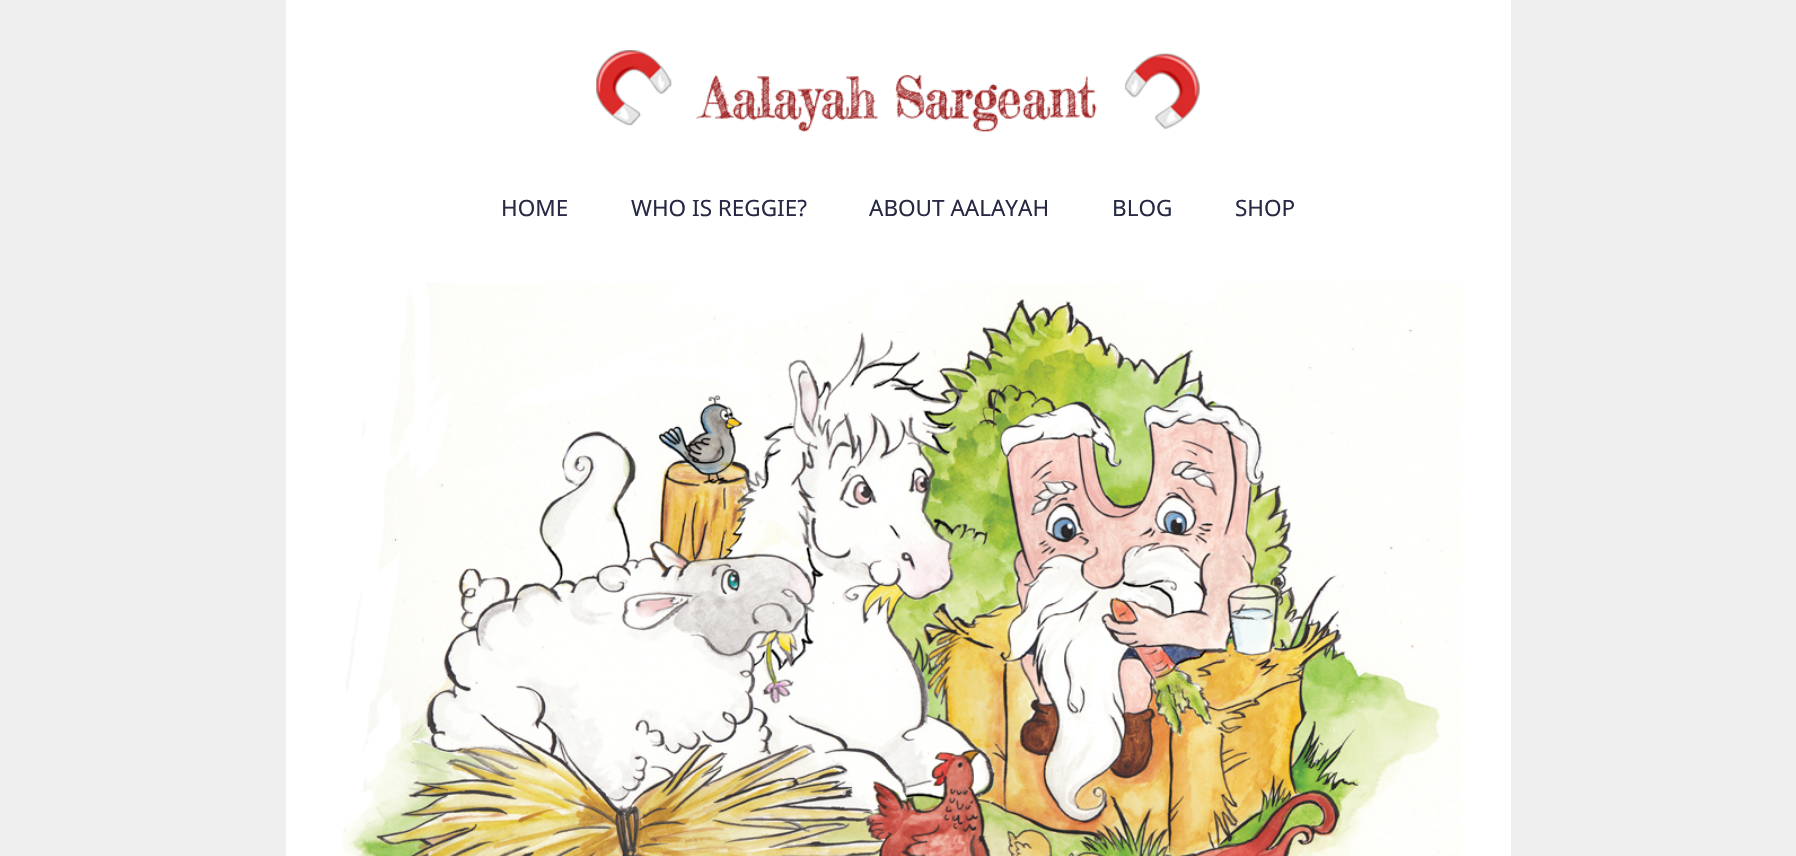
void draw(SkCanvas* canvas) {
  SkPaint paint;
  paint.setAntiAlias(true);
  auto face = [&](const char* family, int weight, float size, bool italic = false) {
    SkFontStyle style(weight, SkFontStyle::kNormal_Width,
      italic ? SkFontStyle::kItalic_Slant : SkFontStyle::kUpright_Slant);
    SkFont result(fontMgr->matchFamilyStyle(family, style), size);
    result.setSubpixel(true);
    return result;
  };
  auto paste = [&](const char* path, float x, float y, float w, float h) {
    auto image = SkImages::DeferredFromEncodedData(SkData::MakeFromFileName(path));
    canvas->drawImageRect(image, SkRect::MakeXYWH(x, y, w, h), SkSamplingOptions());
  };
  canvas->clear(0xffefefef);
  paint.setColor(0xffffffff);
  canvas->drawRect(SkRect::MakeXYWH(286, 0, 1225, 856), paint);
  paste("img/1.png", 596, 50, 604, 83);
  paste("img/2.png", 342, 282, 1119, 574);
  auto f0 = face("Noto Sans", 400, 22.5f);
  paint.setColor(0xff262844);
  {
    const struct { const char* s; float x, y; } items[] = {
      {"HOME", 501, 216},
      {"WHO IS REGGIE?", 631, 216},
      {"ABOUT AALAYAH", 869, 216},
      {"BLOG", 1112, 216},
      {"SHOP", 1235, 216},
    };
    for (auto [s, x, y] : items) {
      canvas->drawString(s, x, y, f0, paint);
    }
  }
}
